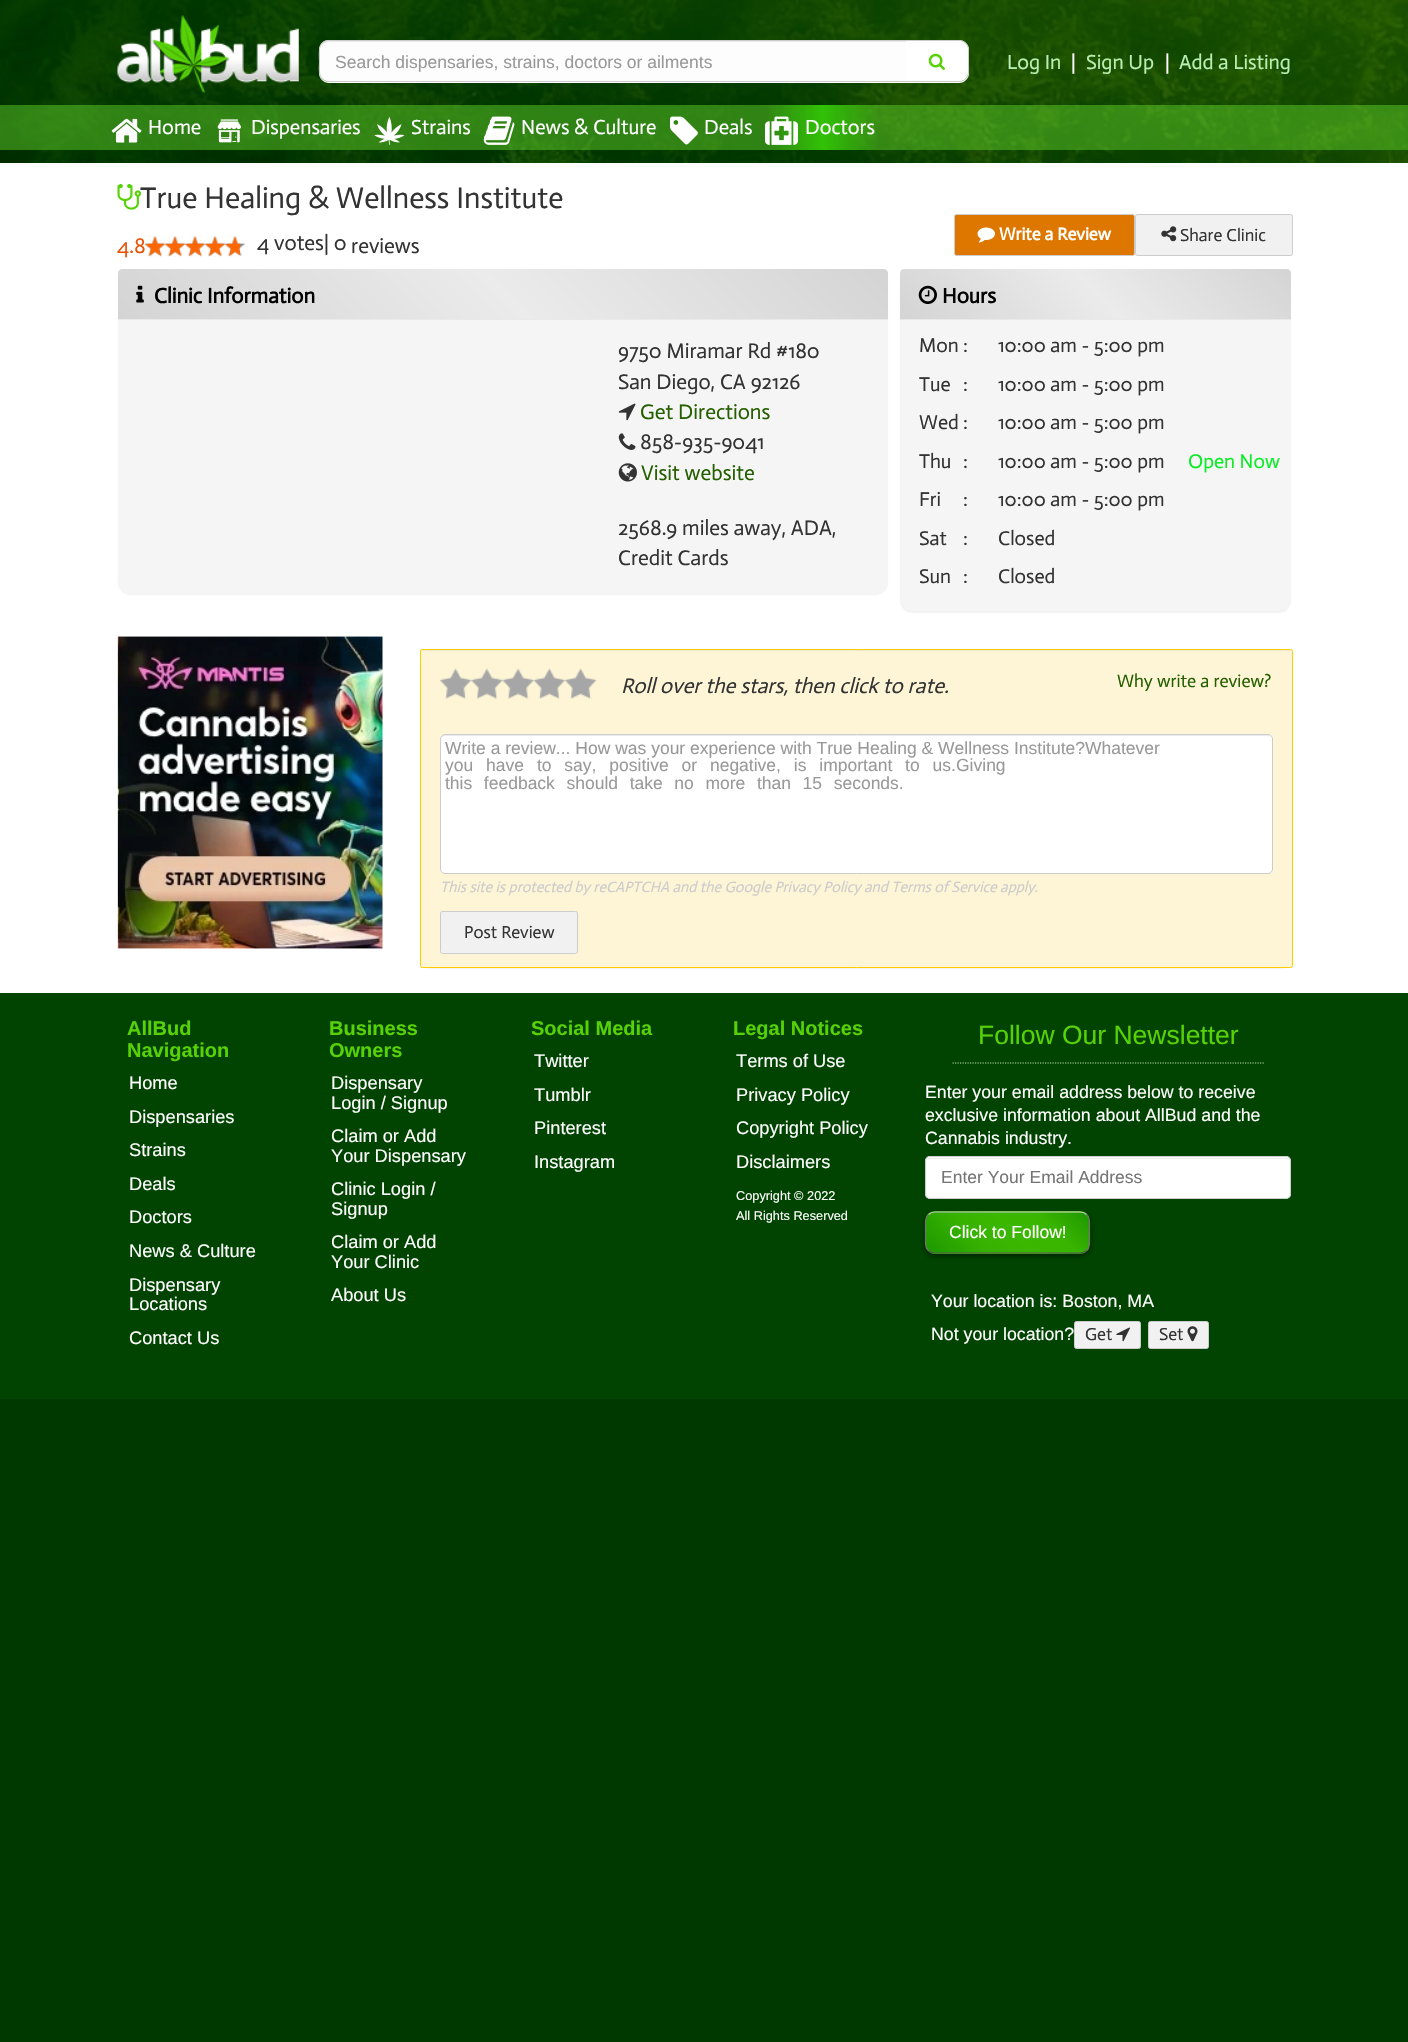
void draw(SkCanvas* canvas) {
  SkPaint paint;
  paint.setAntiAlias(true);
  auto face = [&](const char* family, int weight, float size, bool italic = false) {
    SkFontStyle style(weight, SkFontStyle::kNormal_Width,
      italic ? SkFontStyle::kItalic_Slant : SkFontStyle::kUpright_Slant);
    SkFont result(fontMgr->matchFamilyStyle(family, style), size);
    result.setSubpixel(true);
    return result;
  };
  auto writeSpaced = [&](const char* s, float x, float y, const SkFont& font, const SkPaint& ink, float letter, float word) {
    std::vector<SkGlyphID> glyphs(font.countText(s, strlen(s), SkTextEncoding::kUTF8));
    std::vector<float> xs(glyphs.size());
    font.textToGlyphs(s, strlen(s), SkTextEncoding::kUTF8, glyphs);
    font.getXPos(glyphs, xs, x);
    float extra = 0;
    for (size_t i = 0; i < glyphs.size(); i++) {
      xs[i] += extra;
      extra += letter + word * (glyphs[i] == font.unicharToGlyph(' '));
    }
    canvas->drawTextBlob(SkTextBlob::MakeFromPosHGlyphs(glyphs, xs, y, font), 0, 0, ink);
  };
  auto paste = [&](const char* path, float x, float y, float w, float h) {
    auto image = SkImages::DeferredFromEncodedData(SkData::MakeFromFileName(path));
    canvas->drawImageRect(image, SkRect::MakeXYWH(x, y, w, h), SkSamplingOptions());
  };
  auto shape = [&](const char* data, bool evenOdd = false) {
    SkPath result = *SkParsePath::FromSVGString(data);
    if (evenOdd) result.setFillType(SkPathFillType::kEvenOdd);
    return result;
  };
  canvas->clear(0xff003900);
  paste("img/1.png", 0, 0, 1408, 163);
  paste("img/2.png", 117, 15, 182, 78);
  paint.setColor(0xfffdfdfd);
  canvas->drawPath(shape("M329 40H908V83H329C323.5 83 319 78.5 319 73V50C319 44.5 323.5 40 329 40Z"), paint);
  paint.setColor(0xffeaeaea);
  canvas->drawPath(shape("M329 42H908V41H329C323 41 320 46 320 51C320 46 324 42 329 42Z"), paint);
  paint.setColor(0xffcccccc);
  canvas->drawPath(shape("M329 40H908V82H327C317 80 319 69 319 61C319 53 317 40 329 40ZM329 41H908V81H329C324 81 320 77 320 72V50C320 45 324 41 329 41Z", true), paint);
  paint.setColor(0xffffffff);
  canvas->drawPath(shape("M906 40H959C964.5 40 969 44.5 969 50V73C969 78.5 964.5 83 959 83H906Z"), paint);
  paint.setColor(0xffcccccc);
  canvas->drawPath(shape("M906 40H959C964 40 969 44 969 50V72C969 78 964 82 959 82H906ZM906 41H959C964 41 968 45 968 50V72C968 77 964 81 959 81H906Z", true), paint);
  paste("img/3.png", 928, 53, 17, 17);
  paint.setColor(0x805ecd27);
  canvas->drawRect(SkRect::MakeXYWH(0, 105, 1408, 45), paint);
  paste("img/4.png", 111, 118, 31, 25);
  paste("img/5.png", 217, 119, 24, 24);
  paste("img/6.png", 374, 116, 31, 29);
  paste("img/7.png", 483, 116, 32, 29);
  paste("img/8.png", 670, 116, 28, 29);
  {
    const SkColor colors[] = {0x0031c105, 0xff31c105, 0x0031c105};
    const float stops[] = {0, 0.5f, 1};
    const SkPoint ends[] = {{765, 128}, {881, 128}};
    paint.setShader(SkGradientShader::MakeLinear(ends, colors, stops, 3, SkTileMode::kClamp));
    paint.setAlpha(255);
  }
  canvas->drawRect(SkRect::MakeXYWH(768, 105, 110, 45), paint);
  paste("img/9.png", 765, 116, 33, 29);
  paint.setShader(nullptr);
  paint.setColor(0xffffffff);
  canvas->drawRect(SkRect::MakeXYWH(0, 163, 1408, 830), paint);
  paste("img/10.png", 117, 183, 25, 27);
  paste("img/11.png", 145, 236, 100, 21);
  paste("img/12.png", 145, 236, 95, 21);
  paint.setColor(0xffdd7700);
  canvas->drawRoundRect(SkRect::MakeXYWH(954.5f, 214.5f, 180, 41), 2, 2, paint);
  paint.setStroke(true);
  paint.setStrokeWidth(1);
  paint.setColor(0xffcccccc);
  canvas->drawRoundRect(SkRect::MakeXYWH(954.5f, 214.5f, 180, 41), 2, 2, paint);
  paste("img/13.png", 977, 227, 18, 16);
  paint.setStroke(false);
  paint.setColor(0xfff1f1f1);
  canvas->drawRoundRect(SkRect::MakeXYWH(1135.5f, 214.5f, 157, 41), 2, 2, paint);
  paint.setStroke(true);
  paint.setColor(0xffcccccc);
  canvas->drawRoundRect(SkRect::MakeXYWH(1135.5f, 214.5f, 157, 41), 2, 2, paint);
  paste("img/14.png", 1161, 226, 16, 16);
  paint.setStroke(false);
  paint.setColor(0x0d000000);
  paint.setMaskFilter(SkMaskFilter::MakeBlur(kNormal_SkBlurStyle, 0.5f));
  canvas->drawRoundRect(SkRect::MakeXYWH(118, 270, 770, 325), 13, 13, paint);
  paint.setMaskFilter(nullptr);
  {
    const SkColor colors[] = {0xffd4d4d4, 0xffebebeb, 0xffd4d4d4};
    const float stops[] = {0, 0.5f, 1};
    const SkPoint ends[] = {{298, 499}, {708, 89}};
    paint.setShader(SkGradientShader::MakeLinear(ends, colors, stops, 3, SkTileMode::kClamp));
    paint.setAlpha(255);
  }
  canvas->drawPath(shape("M122 269H884C886 269 888 271 888 273V319H118V273C118 271 120 269 122 269Z"), paint);
  paste("img/15.png", 136, 285, 8, 18);
  paint.setShader(nullptr);
  paint.setColor(0xfff5f5f5);
  canvas->drawPath(shape("M118 319H888V581C888 588 882 594 875 594H131C124 594 118 588 118 581Z"), paint);
  paint.setColor(0xffe9e9e9);
  canvas->drawRect(SkRect::MakeXYWH(118, 319, 770, 1), paint);
  paste("img/16.png", 618, 403, 18, 18);
  paste("img/17.png", 618, 433, 18, 17);
  paste("img/18.png", 618, 463, 19, 19);
  paint.setColor(0x0d000000);
  paint.setMaskFilter(SkMaskFilter::MakeBlur(kNormal_SkBlurStyle, 0.5f));
  canvas->drawRoundRect(SkRect::MakeXYWH(900, 270, 391, 343), 13, 13, paint);
  paint.setMaskFilter(nullptr);
  {
    const SkColor colors[] = {0xffd4d4d4, 0xffebebeb, 0xffd4d4d4};
    const float stops[] = {0, 0.5f, 1};
    const SkPoint ends[] = {{985, 404}, {1206, 183}};
    paint.setShader(SkGradientShader::MakeLinear(ends, colors, stops, 3, SkTileMode::kClamp));
    paint.setAlpha(255);
  }
  canvas->drawPath(shape("M904 269H1287C1289 269 1291 271 1291 273V319H900V273C900 271 902 269 904 269Z"), paint);
  paste("img/19.png", 918, 285, 19, 19);
  paint.setShader(nullptr);
  paint.setColor(0xfff5f5f5);
  canvas->drawPath(shape("M900 319H1291V598C1291 605 1285 611 1278 611H913C906 611 900 605 900 598Z"), paint);
  paint.setColor(0xffe9e9e9);
  canvas->drawRect(SkRect::MakeXYWH(900, 319, 391, 1), paint);
  paste("img/20.png", 117, 636, 266, 313);
  paint.setColor(0x0d000000);
  paint.setMaskFilter(SkMaskFilter::MakeBlur(kNormal_SkBlurStyle, 0.5f));
  canvas->drawRoundRect(SkRect::MakeXYWH(420, 650, 873, 319), 13, 13, paint);
  paint.setMaskFilter(nullptr);
  paint.setColor(0xfffdf5d6);
  canvas->drawRoundRect(SkRect::MakeXYWH(420, 649, 873, 319), 2.5f, 2.5f, paint);
  paint.setColor(0xfff0e9cb);
  canvas->drawPath(shape("M422 651H1290L1291 652V651L1290 650H422L421 651V652Z"), paint);
  paint.setStroke(true);
  paint.setColor(0xffffcc00);
  canvas->drawRoundRect(SkRect::MakeXYWH(420.5f, 649.5f, 872, 318), 2, 2, paint);
  paste("img/21.png", 440, 668, 157, 31);
  paint.setStroke(false);
  paint.setColor(0xffffffff);
  canvas->drawRoundRect(SkRect::MakeXYWH(440, 734, 833, 140), 5, 5, paint);
  paint.setColor(0xffececec);
  canvas->drawPath(shape("M445 736H1268C1270 736 1271 738 1271 740C1271 737 1270 735 1267 735H445C442 735 441 737 441 740C441 738 443 736 445 736Z"), paint);
  paint.setStroke(true);
  paint.setColor(0xffcccccc);
  canvas->drawRoundRect(SkRect::MakeXYWH(440.5f, 734.5f, 832, 139), 4.5f, 4.5f, paint);
  paint.setStroke(false);
  paint.setColor(0xfff1f1f1);
  canvas->drawRoundRect(SkRect::MakeXYWH(440.5f, 911.5f, 137, 42), 2, 2, paint);
  paint.setStroke(true);
  paint.setColor(0xffcccccc);
  canvas->drawRoundRect(SkRect::MakeXYWH(440.5f, 911.5f, 137, 42), 2, 2, paint);
  paint.setStroke(false);
  paint.setColor(0xff014300);
  canvas->drawRect(SkRect::MakeXYWH(0, 993, 1408, 406), paint);
  paint.setStroke(true);
  paint.setStrokeWidth(1.2f);
  paint.setColor(0xffb3dfac);
  paint.setPathEffect(SkDashPathEffect::Make({{1.25f, 1.25f}}, 0));
  canvas->drawPath(shape("M952.5 1063H1264"), paint);
  paint.setPathEffect(nullptr);
  paint.setStroke(false);
  paint.setColor(0xffffffff);
  canvas->drawRoundRect(SkRect::MakeXYWH(925, 1156, 366, 43), 5, 5, paint);
  paint.setColor(0xffececec);
  canvas->drawPath(shape("M930 1159H1286C1288 1159 1290 1160 1290 1162C1290 1160 1288 1158 1286 1158H930C928 1158 926 1160 926 1162C926 1160 928 1159 930 1159Z"), paint);
  paint.setStroke(true);
  paint.setStrokeWidth(1);
  paint.setColor(0xffcccccc);
  canvas->drawRoundRect(SkRect::MakeXYWH(925.5f, 1156.5f, 365, 42), 4.5f, 4.5f, paint);
  paint.setStroke(false);
  paint.setColor(0x80000000);
  paint.setMaskFilter(SkMaskFilter::MakeBlur(kNormal_SkBlurStyle, 2.5f));
  canvas->drawRoundRect(SkRect::MakeXYWH(925, 1214, 165, 42), 10, 10, paint);
  paint.setMaskFilter(nullptr);
  canvas->save();
  canvas->clipPath(shape("M935 1211H1080C1085.5 1211 1090 1215.5 1090 1221V1244C1090 1249.5 1085.5 1254 1080 1254H935C929.5 1254 925 1249.5 925 1244V1221C925 1215.5 929.5 1211 935 1211Z"), true);
  {
    const SkColor colors[] = {0xff1d9800, 0xff37b200, 0xff3cb700, 0xff39b400, 0xff1d9800};
    const float stops[] = {0, 0.32f, 0.53f, 0.75f, 1};
    const SkPoint ends[] = {{957, 1243}, {1058, 1142}};
    paint.setShader(SkGradientShader::MakeLinear(ends, colors, stops, 5, SkTileMode::kClamp));
    paint.setAlpha(255);
  }
  canvas->drawRect(SkRect::MakeXYWH(926, 1211, 163, 2), paint);
  {
    const SkColor colors[] = {0xff1d9800, 0xff37b200, 0xff3cb700, 0xff39b400, 0xff1d9800};
    const float stops[] = {0, 0.32f, 0.53f, 0.75f, 1};
    const SkPoint ends[] = {{957, 1283}, {1058, 1182}};
    paint.setShader(SkGradientShader::MakeLinear(ends, colors, stops, 5, SkTileMode::kClamp));
    paint.setAlpha(255);
  }
  canvas->drawRect(SkRect::MakeXYWH(926, 1213, 163, 40), paint);
  {
    const SkColor colors[] = {0xff1d9800, 0xff37b200, 0xff3cb700, 0xff39b400, 0xff1d9800};
    const float stops[] = {0, 0.32f, 0.53f, 0.75f, 1};
    const SkPoint ends[] = {{957, 1323}, {1058, 1222}};
    paint.setShader(SkGradientShader::MakeLinear(ends, colors, stops, 5, SkTileMode::kClamp));
    paint.setAlpha(255);
  }
  canvas->drawRect(SkRect::MakeXYWH(926, 1253, 163, 1), paint);
  canvas->restore();
  paint.setStroke(true);
  paint.setStrokeWidth(1.2f);
  paint.setShader(nullptr);
  paint.setColor(0xffcccccc);
  canvas->drawPath(shape("M928.5 1214.5C930 1213 932.5 1212 935 1212H1080C1082.5 1212 1085 1213 1086.5 1214.5"), paint);
  paint.setColor(0xff737373);
  canvas->drawPath(shape("M1086.5 1214.5C1088.5 1216.5 1089.5 1219 1089.5 1221V1244C1089.5 1246 1088.5 1248.5 1086.5 1250.5"), paint);
  paint.setColor(0xff565656);
  canvas->drawPath(shape("M1086.5 1250.5C1085 1252 1082.5 1253 1080 1253H935C932.5 1253 930 1252 928.5 1250.5"), paint);
  paint.setColor(0xff737373);
  canvas->drawPath(shape("M928.5 1250.5C926.5 1248.5 925.5 1246 925.5 1244V1221C925.5 1219 926.5 1216.5 928.5 1214.5"), paint);
  paint.setStroke(false);
  paint.setColor(0xfff1f1f1);
  canvas->drawRoundRect(SkRect::MakeXYWH(1074.5f, 1321.5f, 66, 27), 2, 2, paint);
  paint.setStroke(true);
  paint.setStrokeWidth(1);
  paint.setColor(0xffcccccc);
  canvas->drawRoundRect(SkRect::MakeXYWH(1074.5f, 1321.5f, 66, 27), 2, 2, paint);
  paste("img/22.png", 1116, 1327, 14, 15);
  paint.setStroke(false);
  paint.setColor(0xfff1f1f1);
  canvas->drawRoundRect(SkRect::MakeXYWH(1148.5f, 1321.5f, 60, 27), 2, 2, paint);
  paint.setStroke(true);
  paint.setColor(0xffcccccc);
  canvas->drawRoundRect(SkRect::MakeXYWH(1148.5f, 1321.5f, 60, 27), 2, 2, paint);
  paste("img/23.png", 1187, 1326, 11, 16);
  auto f0 = face("Liberation Sans", 400, 17.5f);
  paint.setStroke(false);
  paint.setColor(0xff999999);
  canvas->drawString("Search dispensaries, strains, doctors or ailments", 335, 68, f0, paint);
  auto f1 = face("Actor", 400, 20.5f);
  paint.setColor(0xffb7eeb3);
  canvas->drawString("Log In", 1007, 69, f1, paint);
  paint.setColor(0xffffffff);
  canvas->drawString("|", 1071, 69, f1, paint);
  paint.setColor(0xffb7eeb3);
  canvas->drawString("Sign Up", 1086, 69, f1, paint);
  paint.setColor(0xffffffff);
  canvas->drawString("|", 1165, 69, f1, paint);
  paint.setColor(0xffb7eeb3);
  canvas->drawString("Add a Listing", 1179, 69, f1, paint);
  paint.setColor(0xffffffff);
  {
    const struct { const char* s; float x, y; } items[] = {
      {"Home", 148, 134},
      {"Dispensaries", 251, 134},
      {"Strains", 411, 134},
      {"News & Culture", 521, 134},
      {"Deals", 704, 134},
      {"Doctors", 805, 134},
    };
    for (auto [s, x, y] : items) {
      canvas->drawString(s, x, y, f1, paint);
    }
  }
  auto f2 = face("Actor", 400, 30);
  paint.setColor(0xff333333);
  canvas->drawString("True Healing & Wellness Institute", 140, 208, f2, paint);
  auto f3 = face("Actor", 400, 21.25f);
  paint.setColor(0xffe6560b);
  canvas->drawString("4.8", 117, 253, f3, paint);
  paint.setColor(0xff333333);
  canvas->drawString("4 votes| 0", 257, 250, f3, paint);
  canvas->drawString("reviews", 351, 253, f3, paint);
  auto f4 = face("Actor", 700, 17.5f);
  paint.setColor(0xffffffff);
  canvas->drawString("Write a Review", 999, 240, f4, paint);
  auto f5 = face("Actor", 400, 17.5f);
  paint.setColor(0xff333333);
  canvas->drawString("Share Clinic", 1180, 241, f5, paint);
  auto f6 = face("Actor", 700, 21.25f);
  paint.setColor(0xff000000);
  canvas->drawString("Clinic Information", 154, 303, f6, paint);
  paint.setColor(0xff333333);
  canvas->drawString("9750 Miramar Rd #180", 618, 358, f3, paint);
  canvas->drawString("San Diego, CA 92126", 618, 389, f3, paint);
  paint.setColor(0xff265f00);
  canvas->drawString("Get Directions", 640, 419, f3, paint);
  paint.setColor(0xff333333);
  canvas->drawString("858-935-9041", 640, 449, f3, paint);
  paint.setColor(0xff265f00);
  canvas->drawString("Visit website", 641, 480, f3, paint);
  paint.setColor(0xff333333);
  canvas->drawString("2568.9 miles away, ADA,", 618, 535, f3, paint);
  canvas->drawString("Credit Cards", 618, 565, f3, paint);
  paint.setColor(0xff000000);
  canvas->drawString("Hours", 942, 303, f6, paint);
  auto f7 = face("Actor", 400, 20);
  paint.setColor(0xff333333);
  {
    const struct { const char* s; float x, y; } items[] = {
      {"Mon", 919, 352},
      {":", 963, 352},
      {"10:00 am - 5:00 pm", 998, 352},
      {"Tue", 919, 391},
      {":", 963, 391},
      {"10:00 am - 5:00 pm", 998, 391},
      {"Wed", 919, 429},
      {":", 963, 429},
      {"10:00 am - 5:00 pm", 998, 429},
      {"Thu", 919, 468},
      {":", 963, 468},
      {"10:00 am - 5:00 pm", 998, 468},
    };
    for (auto [s, x, y] : items) {
      canvas->drawString(s, x, y, f7, paint);
    }
  }
  paint.setColor(0xff0bec26);
  canvas->drawString("Open Now", 1188, 468, f7, paint);
  paint.setColor(0xff333333);
  {
    const struct { const char* s; float x, y; } items[] = {
      {"Fri", 919, 506},
      {":", 963, 506},
      {"10:00 am - 5:00 pm", 998, 506},
      {"Sat", 919, 545},
      {":", 963, 545},
      {"Closed", 998, 545},
      {"Sun", 919, 583},
      {":", 963, 583},
      {"Closed", 998, 583},
    };
    for (auto [s, x, y] : items) {
      canvas->drawString(s, x, y, f7, paint);
    }
  }
  auto f8 = face("Actor", 400, 21.25f, true);
  canvas->drawString("Roll over the stars, then click to rate.", 621, 693, f8, paint);
  auto f9 = face("Actor", 400, 18);
  paint.setColor(0xff265f00);
  canvas->drawString("Why write a review?", 1117, 687, f9, paint);
  paint.setColor(0xff999999);
  canvas->drawString("Write a review... How was your experience with True Healing & Wellness Institute?Whatever", 445, 754, f0, paint);
  writeSpaced("you have to say, positive or negative, is important to us.", 445, 771, f0, paint, 0, 8);
  canvas->drawString("Giving", 956, 771, f0, paint);
  writeSpaced("this feedback should take no more than 15 seconds.", 445, 789, f0, paint, 0, 6.75f);
  auto f10 = face("Actor", 400, 15, true);
  paint.setColor(0xffcccccc);
  canvas->drawString("This site is protected by reCAPTCHA and the Google Privacy Policy and Terms of Service apply.", 440, 892, f10, paint);
  paint.setColor(0xff333333);
  canvas->drawString("Post Review", 464, 938, f5, paint);
  auto f11 = face("Liberation Sans", 700, 20);
  paint.setColor(0xff58d208);
  canvas->drawString("AllBud", 127, 1035, f11, paint);
  canvas->drawString("Navigation", 127, 1057, f11, paint);
  auto f12 = face("Liberation Sans", 400, 18.25f);
  paint.setColor(0xffffffff);
  {
    const struct { const char* s; float x, y; } items[] = {
      {"Home", 129, 1089},
      {"Dispensaries", 129, 1123},
      {"Strains", 129, 1156},
      {"Deals", 129, 1190},
      {"Doctors", 129, 1223},
      {"News & Culture", 129, 1257},
      {"Dispensary", 129, 1291},
      {"Locations", 129, 1310},
      {"Contact Us", 129, 1344},
    };
    for (auto [s, x, y] : items) {
      canvas->drawString(s, x, y, f12, paint);
    }
  }
  paint.setColor(0xff58d208);
  canvas->drawString("Business", 329, 1035, f11, paint);
  canvas->drawString("Owners", 329, 1057, f11, paint);
  paint.setColor(0xffffffff);
  {
    const struct { const char* s; float x, y; } items[] = {
      {"Dispensary", 331, 1089},
      {"Login / Signup", 331, 1109},
      {"Claim or Add", 331, 1142},
      {"Your Dispensary", 331, 1162},
      {"Clinic Login /", 331, 1195},
      {"Signup", 331, 1215},
      {"Claim or Add", 331, 1248},
      {"Your Clinic", 331, 1268},
      {"About Us", 331, 1301},
    };
    for (auto [s, x, y] : items) {
      canvas->drawString(s, x, y, f12, paint);
    }
  }
  paint.setColor(0xff58d208);
  canvas->drawString("Social Media", 531, 1035, f11, paint);
  paint.setColor(0xffffffff);
  {
    const struct { const char* s; float x, y; } items[] = {
      {"Twitter", 534, 1067},
      {"Tumblr", 534, 1101},
      {"Pinterest", 534, 1134},
      {"Instagram", 534, 1168},
    };
    for (auto [s, x, y] : items) {
      canvas->drawString(s, x, y, f12, paint);
    }
  }
  paint.setColor(0xff58d208);
  canvas->drawString("Legal Notices", 733, 1035, f11, paint);
  paint.setColor(0xffffffff);
  {
    const struct { const char* s; float x, y; } items[] = {
      {"Terms of Use", 736, 1067},
      {"Privacy Policy", 736, 1101},
      {"Copyright Policy", 736, 1134},
      {"Disclaimers", 736, 1168},
    };
    for (auto [s, x, y] : items) {
      canvas->drawString(s, x, y, f12, paint);
    }
  }
  auto f13 = face("Liberation Sans", 400, 12.75f);
  canvas->drawString("Copyright © 2022", 736, 1200, f13, paint);
  canvas->drawString("All Rights Reserved", 736, 1220, f13, paint);
  auto f14 = face("Liberation Sans", 400, 26.5f);
  paint.setColor(0xff58d208);
  canvas->drawString("Follow Our Newsletter", 978, 1044, f14, paint);
  auto f15 = face("Liberation Sans", 400, 17.75f);
  paint.setColor(0xffffffff);
  {
    const struct { const char* s; float x, y; } items[] = {
      {"Enter your email address below to receive", 925, 1098},
      {"exclusive information about AllBud and the", 925, 1121},
      {"Cannabis industry.", 925, 1144},
    };
    for (auto [s, x, y] : items) {
      canvas->drawString(s, x, y, f15, paint);
    }
  }
  paint.setColor(0xff757575);
  canvas->drawString("Enter Your Email Address", 941, 1183, f0, paint);
  paint.setColor(0xffffffff);
  canvas->drawString("Click to Follow!", 949, 1238, f0, paint);
  canvas->drawString("Your location is: Boston, MA", 931, 1307, f15, paint);
  canvas->drawString("Not your location?", 931, 1340, f15, paint);
  paint.setColor(0xff333333);
  canvas->drawString("Get", 1085, 1340, f5, paint);
  canvas->drawString("Set", 1159, 1340, f5, paint);
}
